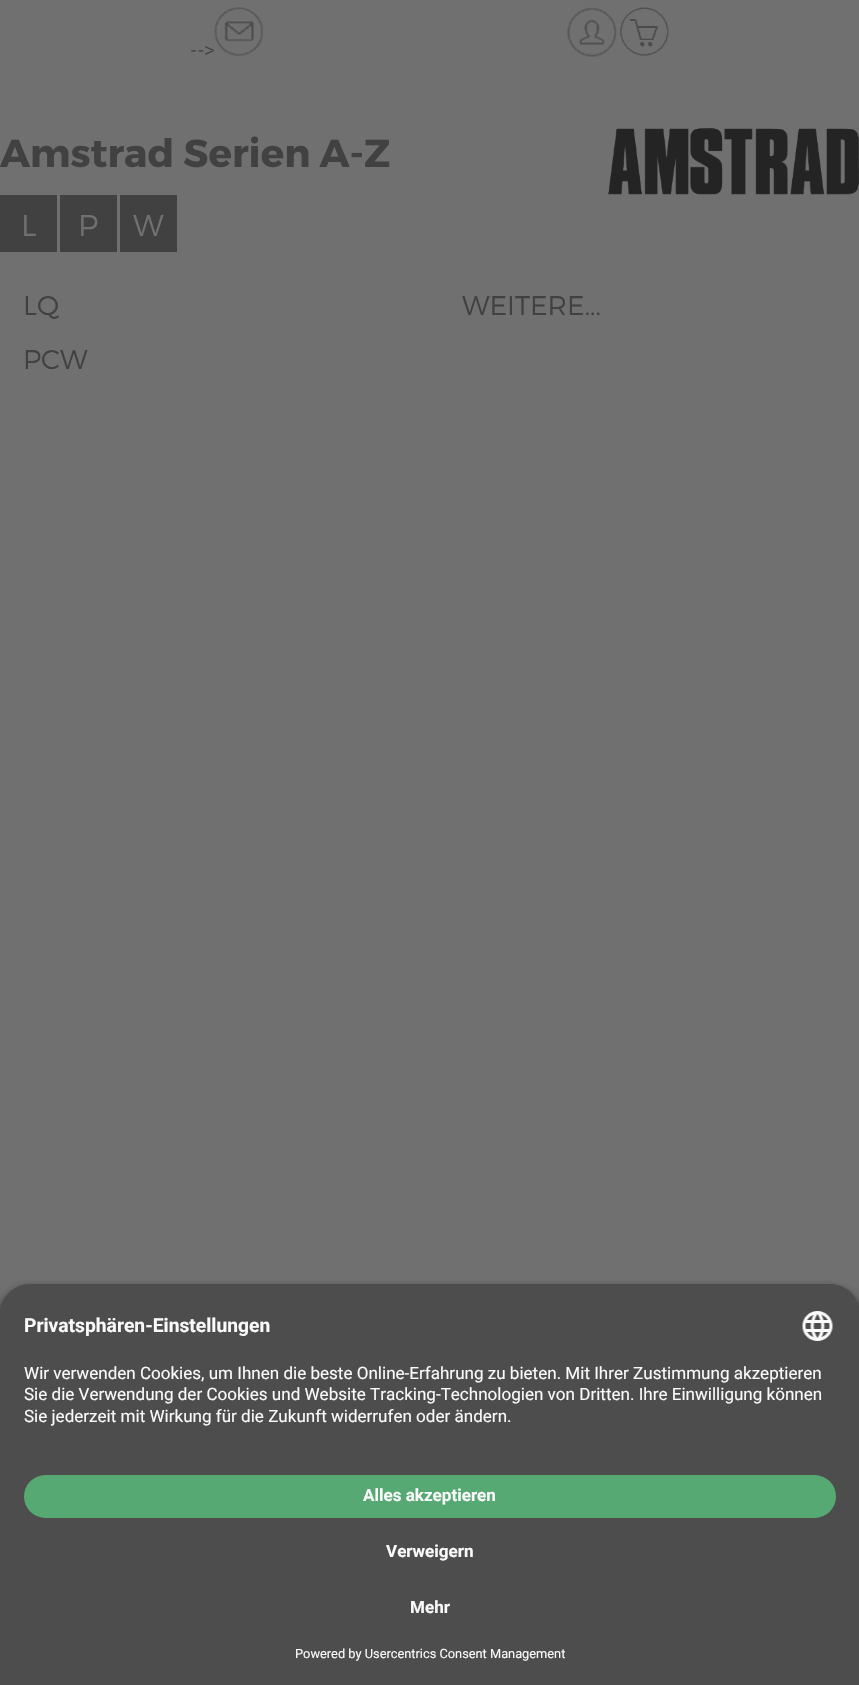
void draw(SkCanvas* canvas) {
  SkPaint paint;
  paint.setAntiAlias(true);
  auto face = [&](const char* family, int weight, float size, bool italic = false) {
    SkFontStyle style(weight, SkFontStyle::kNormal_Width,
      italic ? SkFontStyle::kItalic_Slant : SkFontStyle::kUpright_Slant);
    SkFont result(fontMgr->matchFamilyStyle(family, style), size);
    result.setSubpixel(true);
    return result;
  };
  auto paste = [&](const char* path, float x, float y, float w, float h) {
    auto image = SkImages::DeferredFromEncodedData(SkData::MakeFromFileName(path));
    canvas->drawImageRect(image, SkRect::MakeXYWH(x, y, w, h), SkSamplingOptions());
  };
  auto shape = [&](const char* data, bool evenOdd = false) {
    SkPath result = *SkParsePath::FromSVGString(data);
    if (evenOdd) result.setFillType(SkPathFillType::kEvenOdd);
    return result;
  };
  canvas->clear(0xff707070);
  paste("img/1.png", 214, 7, 49, 49);
  paste("img/2.png", 566, 7, 51, 50);
  paste("img/3.png", 620, 7, 49, 49);
  paste("img/4.png", 608, 128, 251, 67);
  {
    const struct { float x, y, w, h; SkColor color; } items[] = {
      {0, 195, 57, 57, 0xff414141},
      {60, 195, 57, 57, 0xff414141},
      {120, 195, 57, 57, 0xff414141},
    };
    for (auto [x, y, w, h, color] : items) {
      paint.setColor(color);
      canvas->drawRect(SkRect::MakeXYWH(x, y, w, h), paint);
    }
  }
  paint.setColor(0xcc000000);
  paint.setMaskFilter(SkMaskFilter::MakeBlur(kNormal_SkBlurStyle, 5));
  canvas->drawRoundRect(SkRect::MakeXYWH(0, 1289, 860, 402), 30, 30, paint);
  paint.setMaskFilter(nullptr);
  paint.setColor(0xff4e4d4d);
  canvas->drawPath(shape("M30 1284H830C846.5 1284 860 1297.5 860 1314V1457H0V1314C0 1297.5 13.5 1284 30 1284Z"), paint);
  paste("img/5.png", 802, 1311, 31, 30);
  canvas->drawRect(SkRect::MakeXYWH(0, 1457, 859, 228), paint);
  paint.setColor(0xff56a972);
  canvas->drawRoundRect(SkRect::MakeXYWH(24, 1475, 812, 43), 21.5f, 21.5f, paint);
  auto f0 = face("Montserrat", 300, 20);
  paint.setColor(0xff414141);
  canvas->drawString("-->", 190, 57, f0, paint);
  auto f1 = face("Montserrat", 700, 39);
  canvas->drawString("Amstrad Serien A-Z", 0, 167, f1, paint);
  auto f2 = face("Montserrat", 300, 30);
  paint.setColor(0xff707070);
  {
    const struct { const char* s; float x, y; } items[] = {
      {"L", 21, 236},
      {"P", 78, 236},
      {"W", 133, 236},
    };
    for (auto [s, x, y] : items) {
      canvas->drawString(s, x, y, f2, paint);
    }
  }
  auto f3 = face("Montserrat", 300, 27);
  paint.setColor(0xff414141);
  {
    const struct { const char* s; float x, y; } items[] = {
      {"LQ", 23, 315},
      {"WEITERE...", 462, 315},
      {"PCW", 23, 369},
    };
    for (auto [s, x, y] : items) {
      canvas->drawString(s, x, y, f3, paint);
    }
  }
  auto f4 = face("Roboto", 700, 19.25f);
  paint.setColor(0xfffafafa);
  canvas->drawString("Privatsphären-Einstellungen", 24, 1332, f4, paint);
  auto f5 = face("Roboto", 400, 17.05f);
  {
    const struct { const char* s; float x, y; } items[] = {
      {"Wir verwenden Cookies, um Ihnen die beste Online-Erfahrung zu bieten. Mit Ihrer Zustimmung akzeptieren", 24, 1379},
      {"Sie die Verwendung der Cookies und Website Tracking-Technologien von Dritten. Ihre Einwilligung können", 24, 1400},
      {"Sie jederzeit mit Wirkung für die Zukunft widerrufen oder ändern.", 24, 1422},
    };
    for (auto [s, x, y] : items) {
      canvas->drawString(s, x, y, f5, paint);
    }
  }
  auto f6 = face("Roboto", 700, 17.05f);
  {
    const struct { const char* s; float x, y; } items[] = {
      {"Alles akzeptieren", 363, 1501},
      {"Verweigern", 386, 1557},
      {"Mehr", 410, 1613},
    };
    for (auto [s, x, y] : items) {
      canvas->drawString(s, x, y, f6, paint);
    }
  }
  auto f7 = face("Roboto", 400, 12.8f);
  canvas->drawString("Powered by Usercentrics Consent Management", 295, 1658, f7, paint);
}
